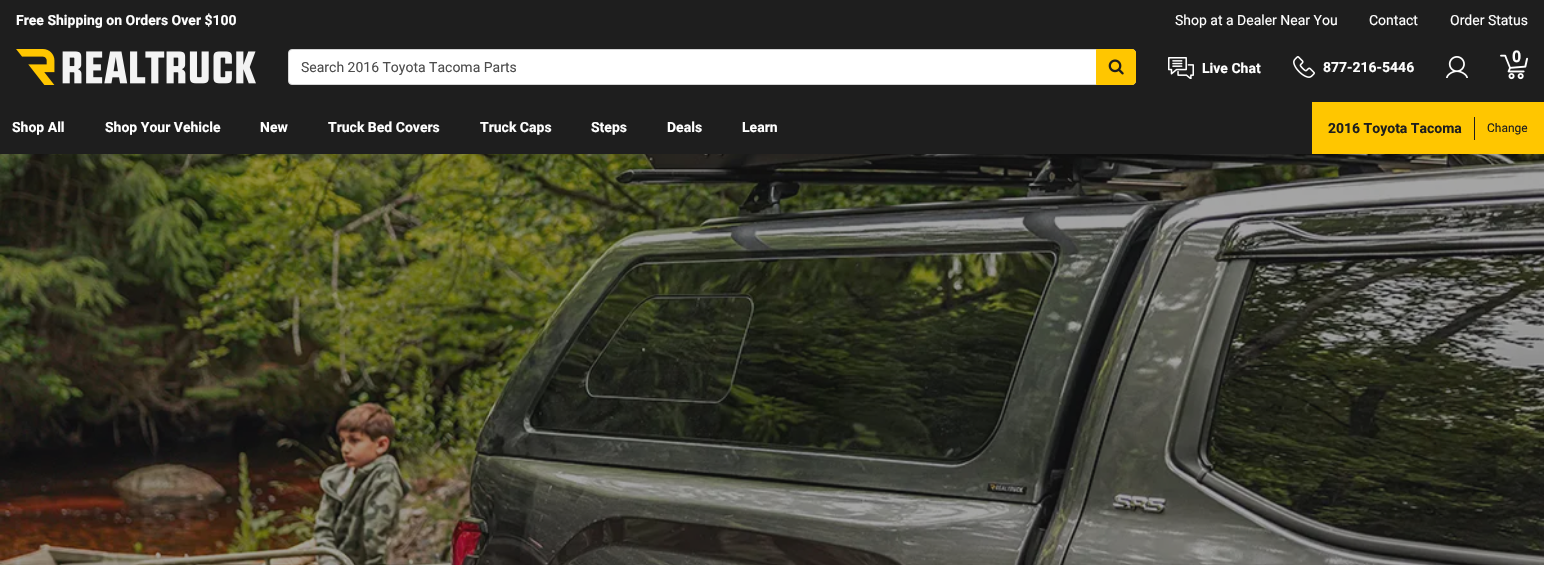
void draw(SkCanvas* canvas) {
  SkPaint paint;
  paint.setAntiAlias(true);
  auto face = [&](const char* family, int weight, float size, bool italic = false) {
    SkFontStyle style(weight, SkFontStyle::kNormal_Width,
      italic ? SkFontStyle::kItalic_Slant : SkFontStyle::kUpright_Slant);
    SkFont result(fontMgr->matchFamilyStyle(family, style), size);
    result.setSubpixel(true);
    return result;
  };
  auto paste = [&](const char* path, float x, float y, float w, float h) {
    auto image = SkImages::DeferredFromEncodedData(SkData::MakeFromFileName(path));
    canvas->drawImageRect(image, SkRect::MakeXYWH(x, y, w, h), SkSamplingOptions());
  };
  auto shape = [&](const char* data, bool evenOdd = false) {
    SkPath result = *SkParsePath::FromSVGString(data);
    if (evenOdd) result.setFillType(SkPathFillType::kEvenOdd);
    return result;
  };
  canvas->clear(0xffffffff);
  paint.setColor(0xff1e1e1e);
  canvas->drawRect(SkRect::MakeXYWH(0, 0, 1544, 102), paint);
  paste("img/1.png", 16, 49, 240, 36);
  paint.setColor(0xffffffff);
  canvas->drawRoundRect(SkRect::MakeXYWH(288.5f, 49.5f, 847, 35), 3.5f, 3.5f, paint);
  paint.setStroke(true);
  paint.setStrokeWidth(1);
  paint.setColor(0xffd5d5d5);
  canvas->drawRoundRect(SkRect::MakeXYWH(288.5f, 49.5f, 847, 35), 3.5f, 3.5f, paint);
  paint.setStroke(false);
  paint.setColor(0xffffc600);
  canvas->drawPath(shape("M1096.5 49.5H1132C1134 49.5 1135.5 51 1135.5 53V81C1135.5 83 1134 84.5 1132 84.5H1096.5Z"), paint);
  paint.setStroke(true);
  canvas->drawPath(shape("M1096.5 49.5H1132C1134 49.5 1135.5 51 1135.5 53V81C1135.5 83 1134 84.5 1132 84.5H1096.5Z"), paint);
  paste("img/2.png", 1108, 59, 16, 16);
  paste("img/3.png", 1168, 57, 26, 22);
  paste("img/4.png", 1293, 56, 22, 22);
  paste("img/5.png", 1446, 56, 22, 22);
  paste("img/6.png", 1500, 54, 28, 26);
  paint.setStroke(false);
  {
    const struct { float x, y, w, h; SkColor color; } items[] = {
      {0, 102, 1312, 52, 0xff1e1e1e},
      {1312, 102, 232, 52, 0xffffc600},
      {1474, 117, 1, 23, 0xff1e1e1e},
    };
    for (auto [x, y, w, h, color] : items) {
      paint.setColor(color);
      canvas->drawRect(SkRect::MakeXYWH(x, y, w, h), paint);
    }
  }
  paste("img/7.png", 0, 154, 1544, 411);
  auto f0 = face("Roboto", 700, 14);
  paint.setColor(0xffffffff);
  canvas->drawString("Free Shipping on Orders Over $100", 16, 25, f0, paint);
  auto f1 = face("Roboto", 400, 14);
  {
    const struct { const char* s; float x, y; } items[] = {
      {"Shop at a Dealer Near You", 1175, 25},
      {"Contact", 1369, 25},
      {"Order Status", 1450, 25},
    };
    for (auto [s, x, y] : items) {
      canvas->drawString(s, x, y, f1, paint);
    }
  }
  paint.setColor(0xff4d4d4d);
  canvas->drawString("Search 2016 Toyota Tacoma Parts", 301, 72, f1, paint);
  paint.setColor(0xffffffff);
  canvas->drawString("Live Chat", 1202, 73, f0, paint);
  canvas->drawString("877-216-5446", 1323, 72, f0, paint);
  auto f2 = face("Roboto", 700, 16);
  canvas->drawString("0", 1512, 62, f2, paint);
  {
    const struct { const char* s; float x, y; } items[] = {
      {"Shop All", 12, 132},
      {"Shop Your Vehicle", 105, 132},
      {"New", 260, 132},
      {"Truck Bed Covers", 328, 132},
      {"Truck Caps", 480, 132},
      {"Steps", 591, 132},
      {"Deals", 667, 132},
      {"Learn", 742, 132},
    };
    for (auto [s, x, y] : items) {
      canvas->drawString(s, x, y, f0, paint);
    }
  }
  paint.setColor(0xff1e1e1e);
  canvas->drawString("2016 Toyota Tacoma", 1328, 133, f0, paint);
  auto f3 = face("Roboto", 400, 12);
  canvas->drawString("Change", 1487, 132, f3, paint);
}
